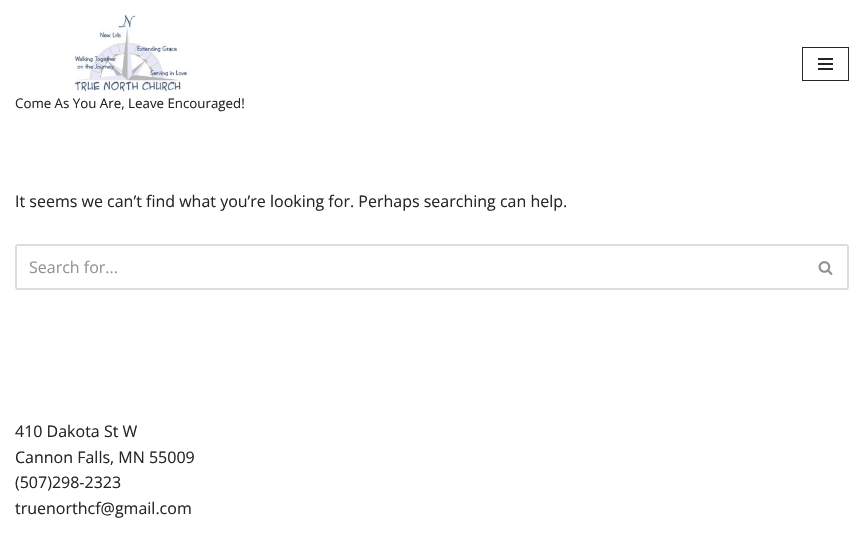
void draw(SkCanvas* canvas) {
  SkPaint paint;
  paint.setAntiAlias(true);
  auto face = [&](const char* family, int weight, float size, bool italic = false) {
    SkFontStyle style(weight, SkFontStyle::kNormal_Width,
      italic ? SkFontStyle::kItalic_Slant : SkFontStyle::kUpright_Slant);
    SkFont result(fontMgr->matchFamilyStyle(family, style), size);
    result.setSubpixel(true);
    return result;
  };
  auto paste = [&](const char* path, float x, float y, float w, float h) {
    auto image = SkImages::DeferredFromEncodedData(SkData::MakeFromFileName(path));
    canvas->drawImageRect(image, SkRect::MakeXYWH(x, y, w, h), SkSamplingOptions());
  };
  auto shape = [&](const char* data, bool evenOdd = false) {
    SkPath result = *SkParsePath::FromSVGString(data);
    if (evenOdd) result.setFillType(SkPathFillType::kEvenOdd);
    return result;
  };
  canvas->clear(0xffffffff);
  paint.setStroke(true);
  paint.setStrokeWidth(1);
  paint.setColor(0xff272626);
  canvas->drawRect(SkRect::MakeXYWH(802.5f, 47.5f, 46, 33), paint);
  paint.setStroke(false);
  {
    const struct { float x, y, w, h; SkColor color; } items[] = {
      {818, 58, 15, 2, 0xff272626},
      {818, 63, 15, 2, 0xff272626},
      {818, 68, 15, 2, 0xff272626},
    };
    for (auto [x, y, w, h, color] : items) {
      paint.setColor(color);
      canvas->drawRect(SkRect::MakeXYWH(x, y, w, h), paint);
    }
  }
  paste("img/1.png", 70, 14, 120, 79);
  paint.setColor(0xffdddddd);
  canvas->drawPath(shape("M18 244H804V290H18C16 290 15 289 15 287V247C15 245 16 244 18 244ZM18 246H804V288H18C17 288 17 288 17 287V247C17 246 17 246 18 246Z", true), paint);
  canvas->drawPath(shape("M804 244H846C848 244 849 245 849 247V287C849 289 848 290 846 290H804ZM804 246H846C847 246 847 246 847 247V287C847 288 847 288 846 288H804Z", true), paint);
  paste("img/2.png", 818, 261, 15, 14);
  auto f0 = face("Open Sans", 400, 13.3f);
  paint.setColor(0xff272626);
  canvas->drawString("Come As You Are, Leave Encouraged!", 15, 108, f0, paint);
  auto f1 = face("Open Sans", 400, 16);
  canvas->drawString("It seems we can’t find what you’re looking for. Perhaps searching can help.", 15, 207, f1, paint);
  paint.setColor(0xff939393);
  canvas->drawString("Search for...", 29, 273, f1, paint);
  paint.setColor(0xff272626);
  {
    const struct { const char* s; float x, y; } items[] = {
      {"410 Dakota St W", 15, 437},
      {"Cannon Falls, MN 55009", 15, 463},
      {"(507)298-2323", 15, 488},
      {"truenorthcf@gmail.com", 15, 514},
    };
    for (auto [s, x, y] : items) {
      canvas->drawString(s, x, y, f1, paint);
    }
  }
}
